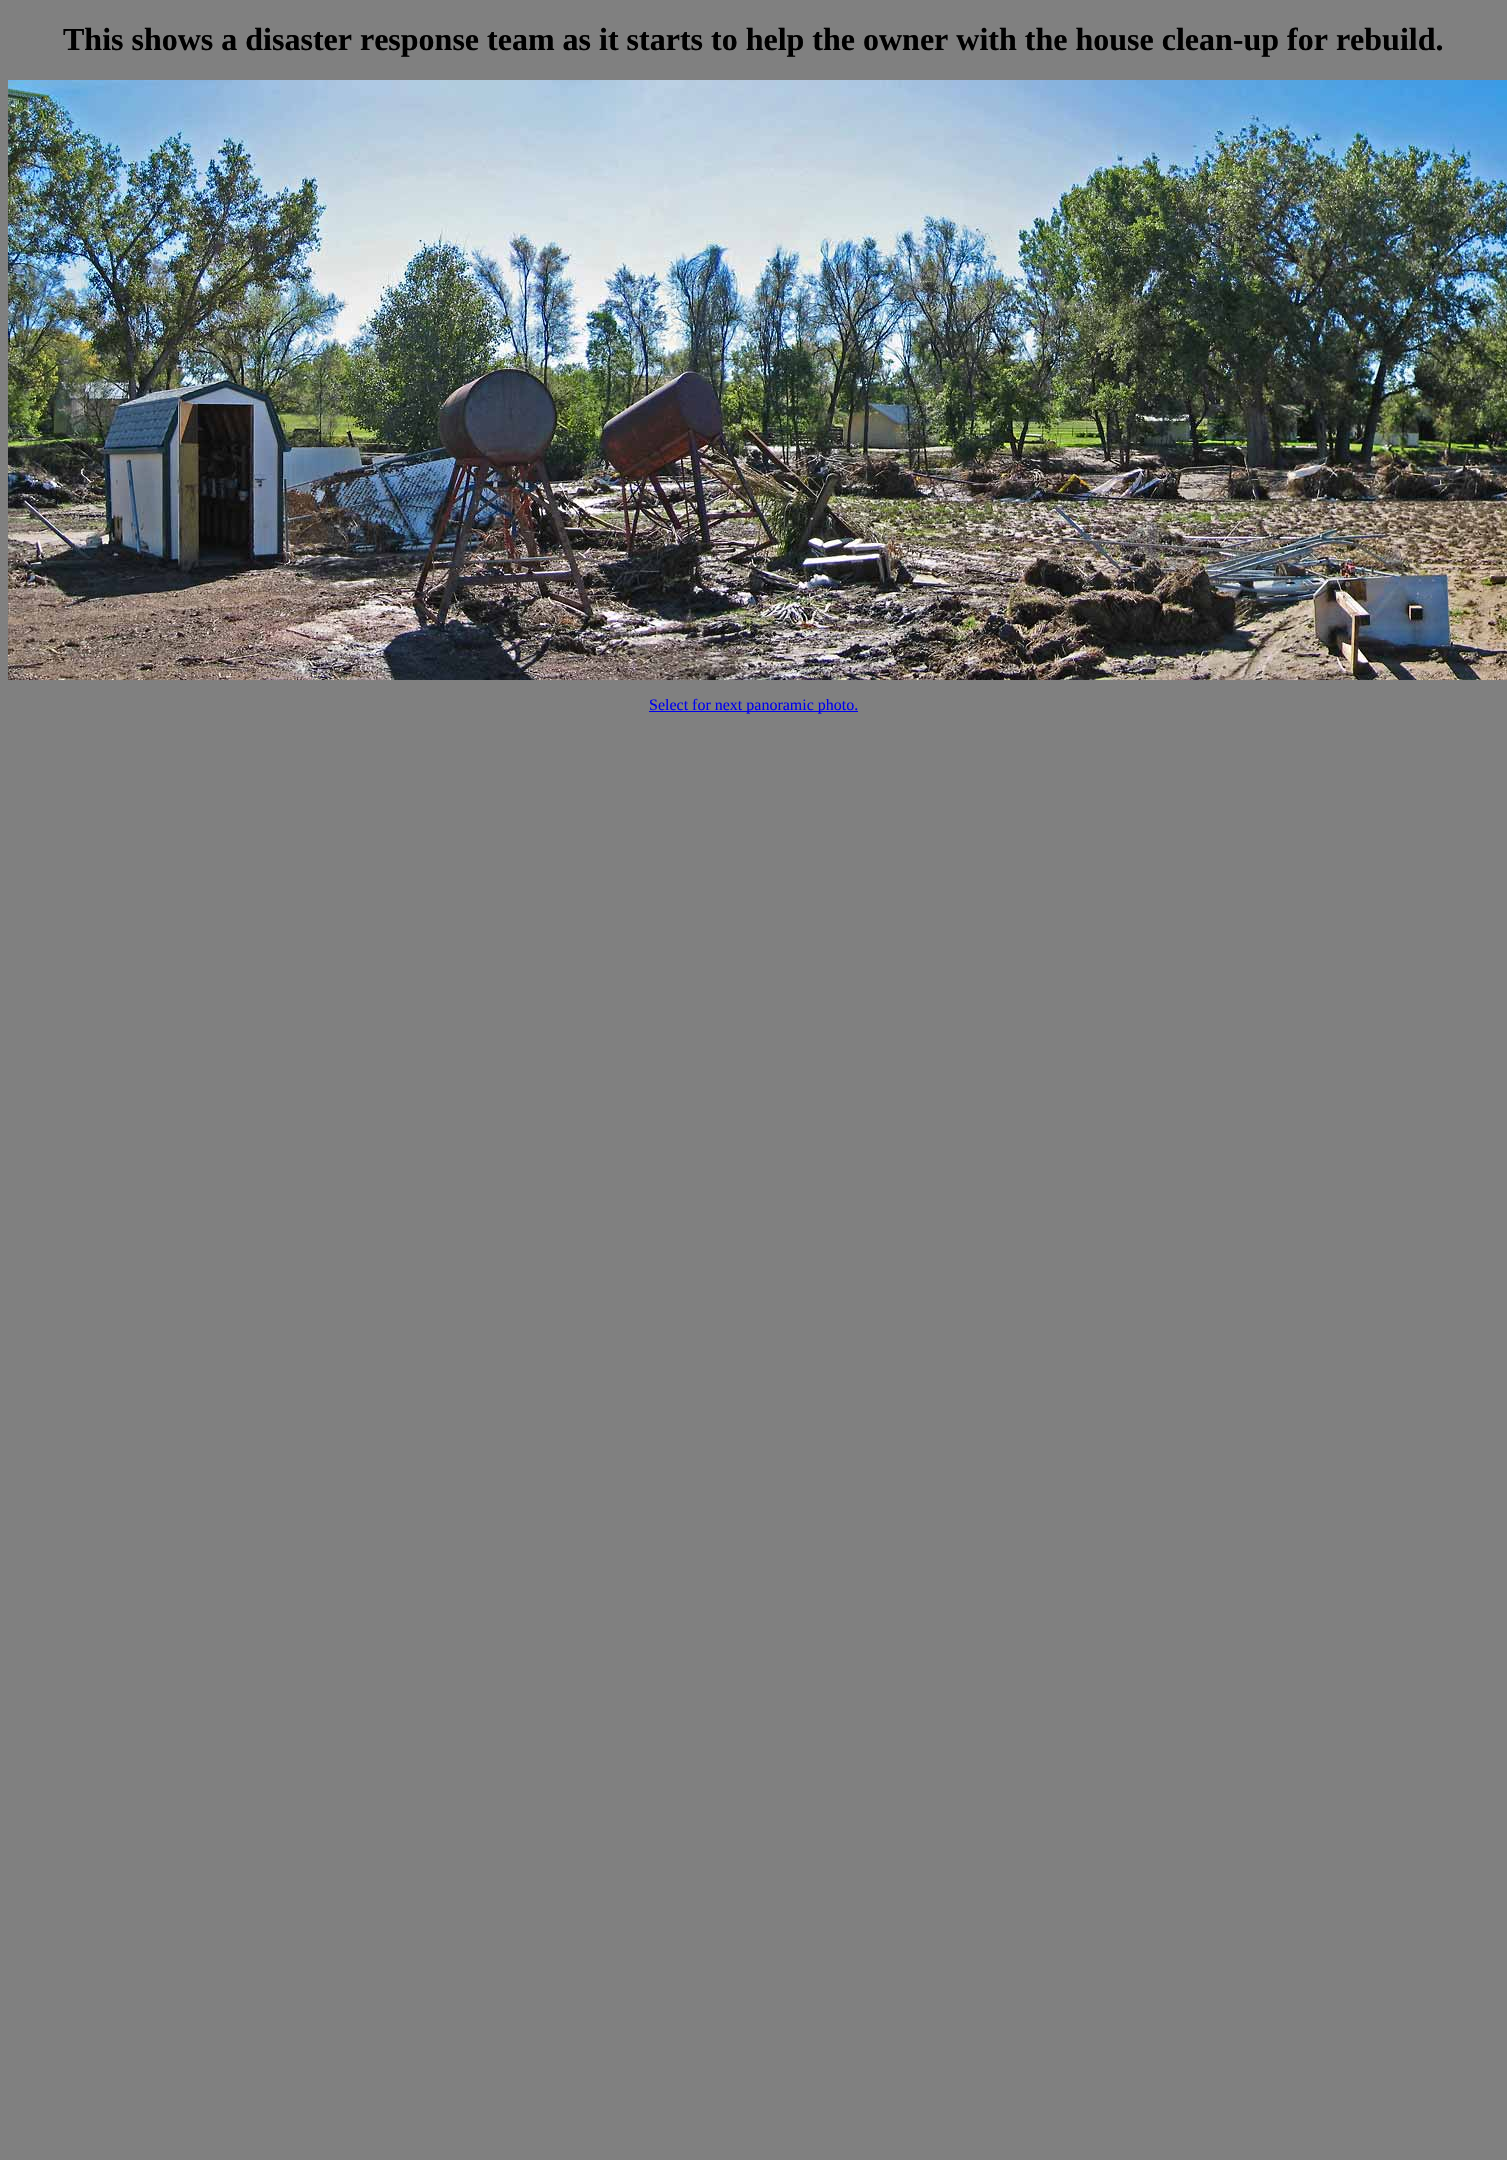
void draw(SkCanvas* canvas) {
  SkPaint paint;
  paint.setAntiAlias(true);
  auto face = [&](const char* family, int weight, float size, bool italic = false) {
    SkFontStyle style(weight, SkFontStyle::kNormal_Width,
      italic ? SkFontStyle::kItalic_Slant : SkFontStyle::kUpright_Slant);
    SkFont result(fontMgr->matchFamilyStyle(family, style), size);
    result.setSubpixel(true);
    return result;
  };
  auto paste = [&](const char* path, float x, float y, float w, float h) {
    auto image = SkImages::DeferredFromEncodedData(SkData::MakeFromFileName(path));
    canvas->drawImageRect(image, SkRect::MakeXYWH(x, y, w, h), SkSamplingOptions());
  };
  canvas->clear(0xff808080);
  paste("img/1.png", 8, 80, 1499, 600);
  paint.setColor(0xff0000ee);
  canvas->drawRect(SkRect::MakeXYWH(649, 711, 209, 1), paint);
  auto f0 = face("Liberation Serif", 700, 32);
  paint.setColor(0xff000000);
  canvas->drawString("This shows a disaster response team as it starts to help the owner with the house clean-up for rebuild.", 63, 50, f0, paint);
  auto f1 = face("Liberation Serif", 400, 16);
  paint.setColor(0xff0000ee);
  canvas->drawString("Select for next panoramic photo.", 649, 710, f1, paint);
}
